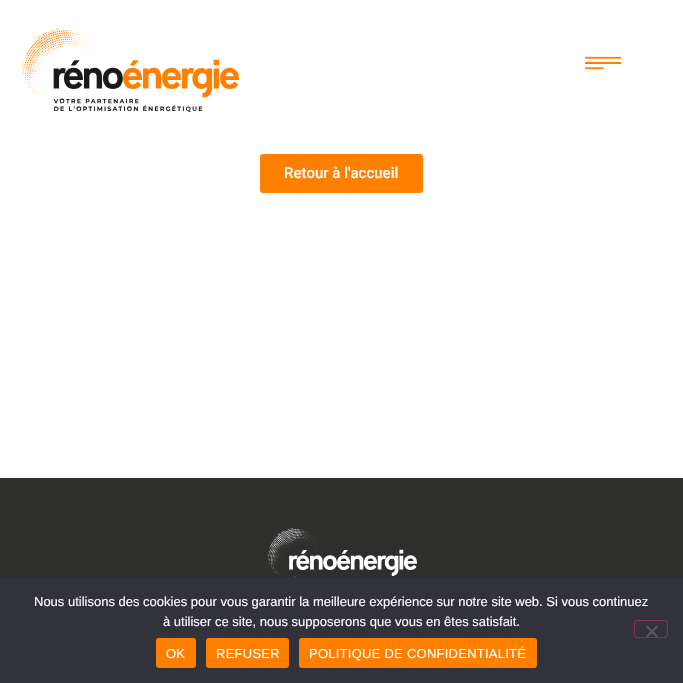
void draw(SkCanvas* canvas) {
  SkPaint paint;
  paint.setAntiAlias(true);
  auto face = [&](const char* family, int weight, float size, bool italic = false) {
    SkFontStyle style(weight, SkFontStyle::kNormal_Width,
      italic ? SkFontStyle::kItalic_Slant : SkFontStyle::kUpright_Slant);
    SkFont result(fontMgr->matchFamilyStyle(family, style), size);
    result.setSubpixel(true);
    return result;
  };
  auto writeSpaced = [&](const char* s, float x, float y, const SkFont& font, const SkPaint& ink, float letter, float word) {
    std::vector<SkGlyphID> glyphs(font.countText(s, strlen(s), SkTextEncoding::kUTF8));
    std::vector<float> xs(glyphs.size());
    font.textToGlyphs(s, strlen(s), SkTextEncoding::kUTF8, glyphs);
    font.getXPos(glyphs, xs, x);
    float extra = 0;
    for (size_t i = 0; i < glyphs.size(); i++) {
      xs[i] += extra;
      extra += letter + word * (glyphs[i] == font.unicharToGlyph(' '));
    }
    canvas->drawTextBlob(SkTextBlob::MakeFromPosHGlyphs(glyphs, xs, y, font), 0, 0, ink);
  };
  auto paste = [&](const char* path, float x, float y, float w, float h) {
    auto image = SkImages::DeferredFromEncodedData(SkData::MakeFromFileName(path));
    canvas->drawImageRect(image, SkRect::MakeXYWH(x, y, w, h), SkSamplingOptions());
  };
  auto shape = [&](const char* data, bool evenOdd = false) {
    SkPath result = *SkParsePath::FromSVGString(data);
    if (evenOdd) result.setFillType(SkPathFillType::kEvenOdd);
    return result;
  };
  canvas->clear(0xffffffff);
  paste("img/1.png", 21, 28, 218, 84);
  paste("img/2.png", 585, 56, 36, 14);
  paint.setColor(0xffff8001);
  canvas->drawRoundRect(SkRect::MakeXYWH(260, 154, 163, 39), 3, 3, paint);
  paint.setColor(0xff2e2e2d);
  canvas->drawRect(SkRect::MakeXYWH(0, 478, 683, 99), paint);
  paste("img/3.png", 266, 528, 151, 49);
  paint.setColor(0xff32323a);
  canvas->drawRect(SkRect::MakeXYWH(0, 577, 683, 106), paint);
  paint.setStroke(true);
  paint.setStrokeWidth(1);
  paint.setColor(0xff7f3350);
  canvas->drawRoundRect(SkRect::MakeXYWH(634.5f, 620.5f, 33, 17), 2.5f, 2.5f, paint);
  paint.setStroke(false);
  paint.setColor(0xff59595d);
  canvas->drawPath(shape("M656.5 625.5L658 627L647.5 637.5L646 636Z"), paint);
  canvas->drawPath(shape("M646 627L647.5 625.5L658 636L656.5 637.5Z"), paint);
  paint.setColor(0xffff8001);
  canvas->drawRoundRect(SkRect::MakeXYWH(156, 638, 40, 30), 3, 3, paint);
  canvas->drawRoundRect(SkRect::MakeXYWH(206, 638, 83, 30), 3, 3, paint);
  canvas->drawRoundRect(SkRect::MakeXYWH(299, 638, 238, 30), 3, 3, paint);
  auto f0 = face("Roboto", 500, 15);
  paint.setColor(0xffffffff);
  canvas->drawString("Retour à l'accueil", 284, 178, f0, paint);
  auto f1 = face("Liberation Sans", 400, 13);
  canvas->drawString("Nous utilisons des cookies pour vous garantir la meilleure expérience sur notre site web. Si vous continuez", 34, 606, f1, paint);
  canvas->drawString("à utiliser ce site, nous supposerons que vous en êtes satisfait.", 163, 626, f1, paint);
  {
    const struct { const char* s; float x, y; } items[] = {
      {"OK", 166, 658},
      {"REFUSER", 216, 658},
      {"POLITIQUE DE CONFIDENTIALITÉ", 309, 658},
    };
    for (auto [s, x, y] : items) {
      writeSpaced(s, x, y, f1, paint, 0.25f, 0);
    }
  }
}
